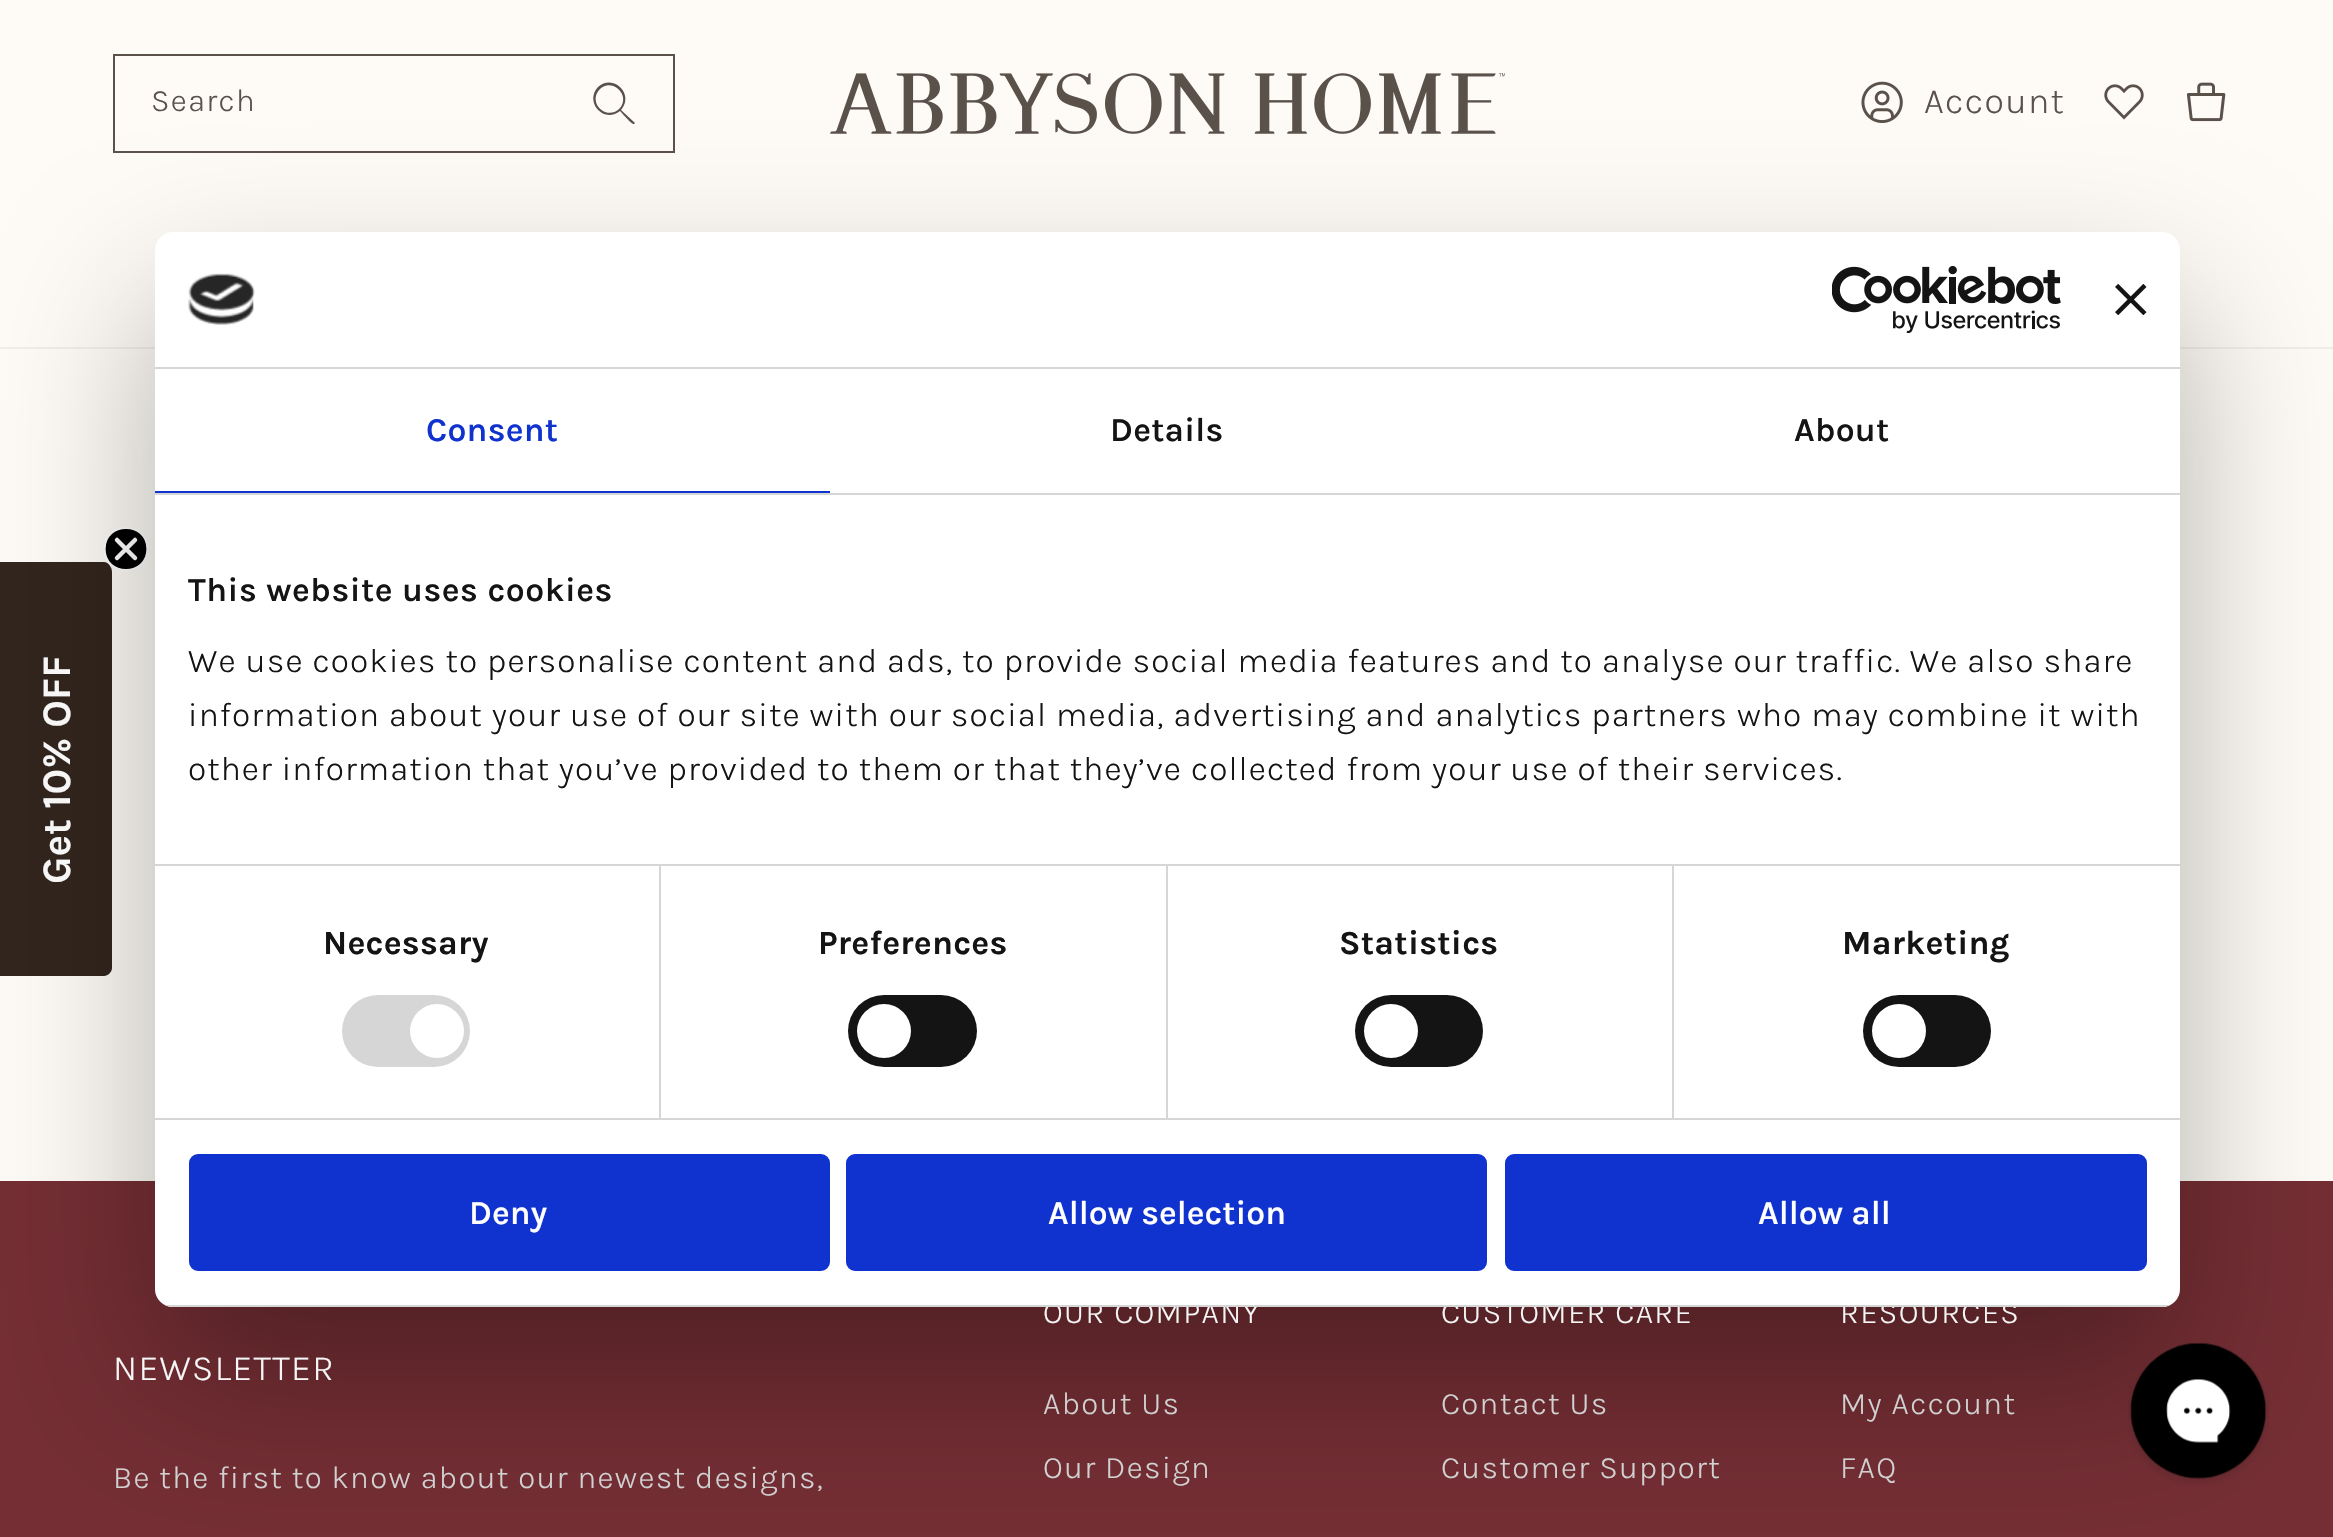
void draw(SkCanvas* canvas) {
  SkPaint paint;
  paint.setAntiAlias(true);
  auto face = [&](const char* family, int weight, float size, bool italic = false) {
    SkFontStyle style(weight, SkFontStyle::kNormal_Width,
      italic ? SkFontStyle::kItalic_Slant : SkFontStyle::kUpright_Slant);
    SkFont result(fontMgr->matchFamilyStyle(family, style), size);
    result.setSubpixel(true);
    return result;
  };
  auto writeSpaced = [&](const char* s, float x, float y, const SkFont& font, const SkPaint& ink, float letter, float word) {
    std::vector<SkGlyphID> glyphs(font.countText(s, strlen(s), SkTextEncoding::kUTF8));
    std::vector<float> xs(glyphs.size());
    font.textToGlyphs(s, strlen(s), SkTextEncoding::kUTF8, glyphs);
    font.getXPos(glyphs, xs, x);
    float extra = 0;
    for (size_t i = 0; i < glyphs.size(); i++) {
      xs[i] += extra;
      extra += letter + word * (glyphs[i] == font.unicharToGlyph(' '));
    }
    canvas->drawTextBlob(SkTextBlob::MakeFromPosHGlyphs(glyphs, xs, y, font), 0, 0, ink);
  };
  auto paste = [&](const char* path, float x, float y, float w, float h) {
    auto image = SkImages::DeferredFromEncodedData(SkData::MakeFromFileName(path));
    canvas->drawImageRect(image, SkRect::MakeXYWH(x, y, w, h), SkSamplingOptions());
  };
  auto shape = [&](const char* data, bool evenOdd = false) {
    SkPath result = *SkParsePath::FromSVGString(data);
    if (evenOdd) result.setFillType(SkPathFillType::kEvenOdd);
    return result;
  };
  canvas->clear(0xfffefbf6);
  paint.setColor(0xfff1ede8);
  canvas->drawRect(SkRect::MakeXYWH(0, 347, 2333, 2), paint);
  paint.setStroke(true);
  paint.setStrokeWidth(2);
  paint.setColor(0xff5a514a);
  canvas->drawRect(SkRect::MakeXYWH(114, 55, 560, 97), paint);
  paint.setStroke(false);
  canvas->drawPath(shape("M619 109C606 121 587 102 600 89C612 77 632 96 619 109ZM620 111C604 124 584 102 598 87C613 73 635 94 621 110L635 123L634 124C632 125 622 113 620 111Z", true), paint);
  paste("img/1.png", 830, 73, 675, 61);
  paste("img/2.png", 1861, 81, 42, 42);
  paste("img/3.png", 2104, 84, 40, 36);
  paste("img/4.png", 2186, 82, 40, 40);
  paint.setColor(0xff32251d);
  canvas->drawPath(shape("M0 976V562H104C108 562 112 567 112 572V968C112 972 108 976 104 976Z"), paint);
  paint.setColor(0xff000000);
  canvas->drawPath(shape("M105 549C105 521 147 521 147 549C147 577 105 577 105 549Z"), paint);
  paint.setStroke(true);
  paint.setStrokeWidth(2.2f);
  paint.setColor(0xffffffff);
  canvas->drawPath(shape("M104.5 549C104.5 521 147.5 521 147.5 549C147.5 577 104.5 577 104.5 549Z"), paint);
  paint.setStrokeWidth(4.5f);
  paint.setStrokeCap(SkPaint::kRound_Cap);
  paint.setStrokeJoin(SkPaint::kRound_Join);
  canvas->drawPath(shape("M117 558L135 540M135 558L117 540Z"), paint);
  paint.setStroke(false);
  paint.setColor(0xff742e34);
  canvas->drawRect(SkRect::MakeXYWH(0, 1181, 2333, 356), paint);
  paint.setColor(0x4d000000);
  paint.setMaskFilter(SkMaskFilter::MakeBlur(kNormal_SkBlurStyle, 76.5f));
  canvas->drawRoundRect(SkRect::MakeXYWH(155, 304, 2025, 1075), 18, 18, paint);
  paint.setMaskFilter(nullptr);
  paste("img/8.png", 2128, 1342, 141, 144);
  auto f0 = face("Karla", 300, 31.5f);
  paint.setColor(0xff5a514a);
  writeSpaced("Search", 151, 111, f0, paint, 1.35f, 0);
  auto f1 = face("Karla", 300, 36);
  writeSpaced("Account", 1924, 113, f1, paint, 1.35f, 0);
  auto f2 = face("Karla", 700, 40.5f);
  paint.setColor(0xfff6f6f6);
  canvas->save();
  canvas->rotate(-90, 70, 884);
  canvas->drawString("Get 10% OFF", 70, 884, f2, paint);
  canvas->restore();
  writeSpaced("NEWSLETTER", 113, 1380, f1, paint, 1.35f, 0);
  paint.setColor(0xffd1d1d1);
  writeSpaced("Be the first to know about our newest designs,", 113, 1488, f0, paint, 1.35f, 0);
  paint.setColor(0xfff6f6f6);
  writeSpaced("OUR COMPANY", 1043, 1323, f0, paint, 1.35f, 0);
  paint.setColor(0xffd1d1d1);
  writeSpaced("About Us", 1043, 1414, f0, paint, 1.35f, 0);
  writeSpaced("Our Design", 1043, 1478, f0, paint, 1.35f, 0);
  paint.setColor(0xfff6f6f6);
  writeSpaced("CUSTOMER CARE", 1441, 1323, f0, paint, 1.35f, 0);
  paint.setColor(0xffd1d1d1);
  writeSpaced("Contact Us", 1441, 1414, f0, paint, 1.35f, 0);
  writeSpaced("Customer Support", 1441, 1478, f0, paint, 1.35f, 0);
  paint.setColor(0xfff6f6f6);
  writeSpaced("RESOURCES", 1840, 1323, f0, paint, 1.35f, 0);
  paint.setColor(0xffffffff);
  canvas->drawRoundRect(SkRect::MakeXYWH(155, 232, 2025, 1075), 18, 18, paint);
  paint.setColor(0xff1032cf);
  canvas->drawRoundRect(SkRect::MakeXYWH(1507.5f, 1156.5f, 637, 112), 6.5f, 6.5f, paint);
  paint.setStroke(true);
  paint.setStrokeWidth(5);
  paint.setStrokeCap(SkPaint::kButt_Cap);
  paint.setStrokeJoin(SkPaint::kMiter_Join);
  canvas->drawRoundRect(SkRect::MakeXYWH(1507.5f, 1156.5f, 637, 112), 6.5f, 6.5f, paint);
  auto f3 = face("Karla", 600, 33.75f);
  paint.setStroke(false);
  paint.setColor(0xffffffff);
  canvas->drawString("Allow all", 1758, 1224, f3, paint);
  paint.setColor(0xff1032cf);
  canvas->drawRoundRect(SkRect::MakeXYWH(848.5f, 1156.5f, 636, 112), 6.5f, 6.5f, paint);
  paint.setStroke(true);
  canvas->drawRoundRect(SkRect::MakeXYWH(848.5f, 1156.5f, 636, 112), 6.5f, 6.5f, paint);
  paint.setStroke(false);
  paint.setColor(0xffffffff);
  canvas->drawString("Allow selection", 1048, 1224, f3, paint);
  paint.setColor(0xff1032cf);
  canvas->drawRoundRect(SkRect::MakeXYWH(191.5f, 1156.5f, 636, 112), 6.5f, 6.5f, paint);
  paint.setStroke(true);
  canvas->drawRoundRect(SkRect::MakeXYWH(191.5f, 1156.5f, 636, 112), 6.5f, 6.5f, paint);
  paint.setStroke(false);
  paint.setColor(0xffffffff);
  canvas->drawString("Deny", 469, 1224, f3, paint);
  canvas->save();
  canvas->clipPath(shape("M173 232H2162C2172 232 2180 240 2180 250V1289C2180 1299 2172 1307 2162 1307H173C163 1307 155 1299 155 1289V250C155 240 163 232 173 232Z"), true);
  paint.setColor(0xffd6d6d6);
  canvas->drawRect(SkRect::MakeXYWH(165, 1305, 2005, 2), paint);
  canvas->restore();
  paint.setColor(0xff141414);
  canvas->drawRoundRect(SkRect::MakeXYWH(1863, 995, 128, 72), 36, 36, paint);
  paint.setColor(0xffffffff);
  canvas->drawCircle(1899, 1031, 27, paint);
  paint.setColor(0xff141414);
  canvas->drawRoundRect(SkRect::MakeXYWH(1355, 995, 128, 72), 36, 36, paint);
  paint.setColor(0xffffffff);
  canvas->drawCircle(1391, 1031, 27, paint);
  paint.setColor(0xff141414);
  canvas->drawRoundRect(SkRect::MakeXYWH(848, 995, 129, 72), 36, 36, paint);
  paint.setColor(0xffffffff);
  canvas->drawCircle(884, 1031, 27, paint);
  paint.setColor(0xffd6d6d6);
  canvas->drawRoundRect(SkRect::MakeXYWH(342, 995, 128, 72), 36, 36, paint);
  paint.setColor(0xffffffff);
  canvas->drawCircle(437, 1031, 27, paint);
  auto f4 = face("Karla", 300, 33.75f);
  paint.setColor(0xff141414);
  {
    const struct { const char* s; float x, y; } items[] = {
      {"other information that you’ve provided to them or that they’ve collected from your use of their services.", 188, 780},
      {"information about your use of our site with our social media, advertising and analytics partners who may combine it with", 188, 726},
      {"We use cookies to personalise content and ads, to provide social media features and to analyse our traffic. We also share", 188, 672},
    };
    for (auto [s, x, y] : items) {
      writeSpaced(s, x, y, f4, paint, 1.12f, 0);
    }
  }
  writeSpaced("This website uses cookies", 188, 601, f3, paint, 0.55f, 0);
  paint.setColor(0xffd6d6d6);
  canvas->drawRect(SkRect::MakeXYWH(155, 864, 2025, 2), paint);
  paint.setColor(0xff141414);
  writeSpaced("About", 1794, 441, f3, paint, 0.25f, 0);
  writeSpaced("Details", 1110, 441, f3, paint, 0.25f, 0);
  paint.setColor(0xff1032cf);
  writeSpaced("Consent", 426, 441, f3, paint, 0.25f, 0);
  canvas->drawRect(SkRect::MakeXYWH(155, 491, 675, 2), paint);
  paint.setColor(0xffd6d6d6);
  canvas->drawRect(SkRect::MakeXYWH(155, 493, 2025, 2), paint);
  auto f5 = face("Karla", 700, 33.75f);
  paint.setColor(0xff141414);
  writeSpaced("Marketing", 1842, 954, f5, paint, 0.25f, 0);
  writeSpaced("Statistics", 1339, 954, f5, paint, 0.25f, 0);
  paint.setColor(0xffd6d6d6);
  canvas->drawRect(SkRect::MakeXYWH(1672, 866, 2, 252), paint);
  paint.setColor(0xff141414);
  writeSpaced("Preferences", 818, 954, f5, paint, 0.25f, 0);
  paint.setColor(0xffd6d6d6);
  canvas->drawRect(SkRect::MakeXYWH(1166, 866, 2, 252), paint);
  paint.setColor(0xff141414);
  writeSpaced("Necessary", 323, 954, f5, paint, 0.25f, 0);
  paint.setColor(0xffd6d6d6);
  canvas->drawRect(SkRect::MakeXYWH(659, 866, 2, 252), paint);
  canvas->drawRect(SkRect::MakeXYWH(155, 1118, 2025, 2), paint);
  paste("img/7.png", 2115, 284, 32, 31);
  paste("img/6.png", 1832, 266, 229, 67);
  paste("img/5.png", 188, 273, 67, 52);
  canvas->drawRect(SkRect::MakeXYWH(155, 367, 2025, 2), paint);
  paint.setColor(0xffd1d1d1);
  writeSpaced("My Account", 1840, 1414, f0, paint, 1.35f, 0);
  writeSpaced("FAQ", 1840, 1478, f0, paint, 1.35f, 0);
}
